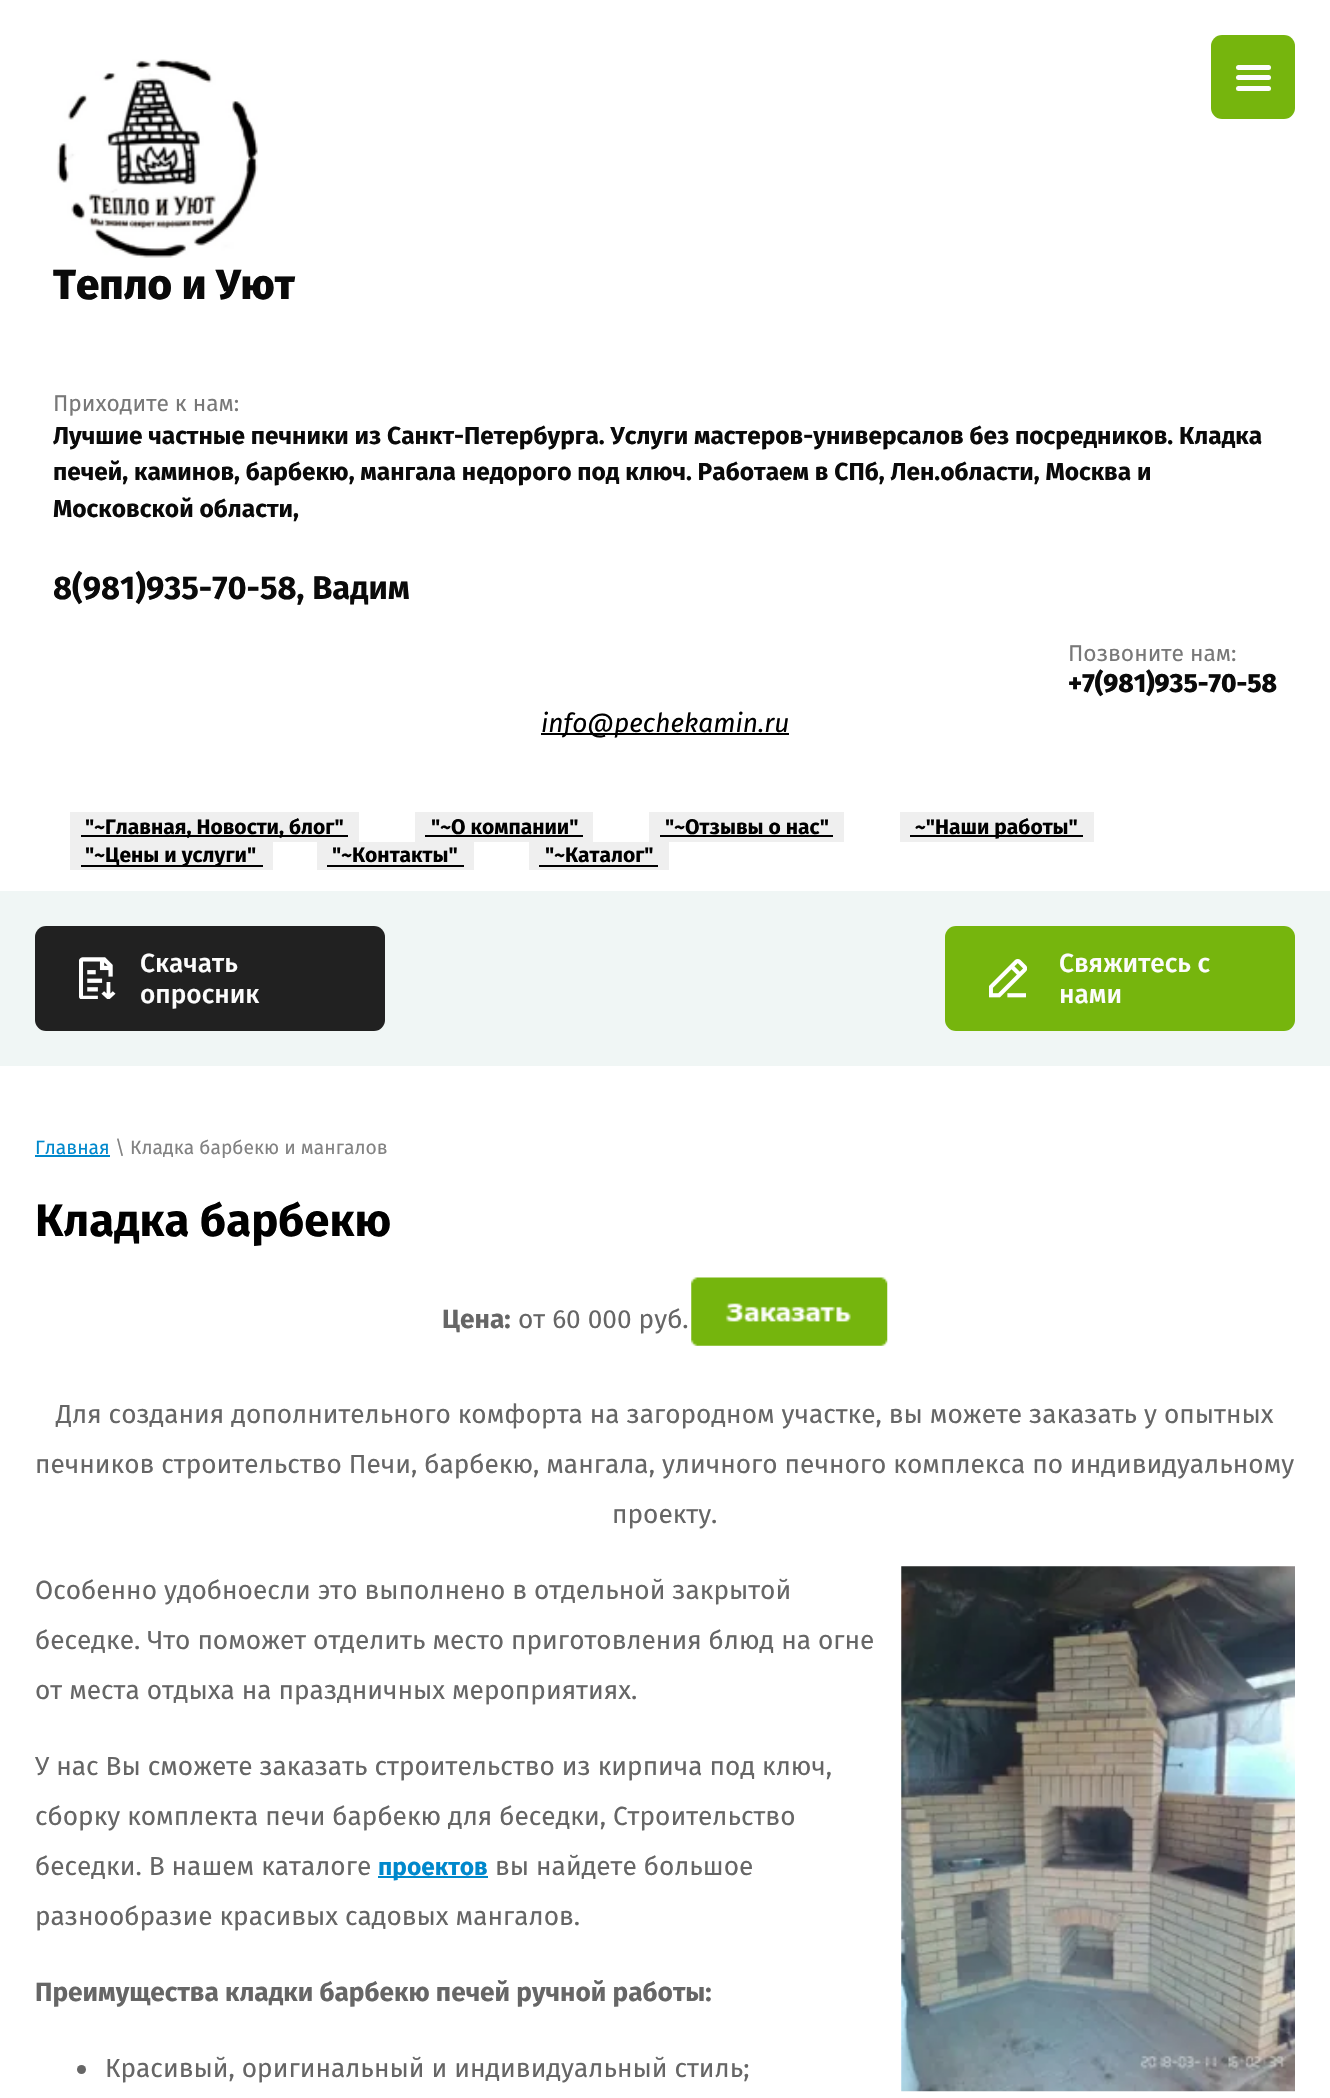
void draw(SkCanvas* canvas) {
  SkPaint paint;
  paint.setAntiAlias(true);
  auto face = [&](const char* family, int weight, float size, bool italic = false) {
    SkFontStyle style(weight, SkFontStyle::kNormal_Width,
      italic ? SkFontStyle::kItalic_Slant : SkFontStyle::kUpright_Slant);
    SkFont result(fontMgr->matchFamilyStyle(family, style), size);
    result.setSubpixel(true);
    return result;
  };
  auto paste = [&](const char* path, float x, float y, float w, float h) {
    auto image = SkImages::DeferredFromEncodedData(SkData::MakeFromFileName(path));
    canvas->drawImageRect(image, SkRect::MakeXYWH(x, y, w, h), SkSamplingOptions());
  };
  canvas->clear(0xffffffff);
  paint.setColor(0xff76b50d);
  canvas->drawRoundRect(SkRect::MakeXYWH(1211, 35, 84, 84), 11, 11, paint);
  paint.setColor(0xfffcfcfc);
  canvas->drawRoundRect(SkRect::MakeXYWH(1236, 65, 35, 5), 2.5f, 2.5f, paint);
  canvas->drawRoundRect(SkRect::MakeXYWH(1236, 75, 35, 5), 2.5f, 2.5f, paint);
  canvas->drawRoundRect(SkRect::MakeXYWH(1236, 86, 35, 5), 2.5f, 2.5f, paint);
  paste("img/1.png", 57, 59, 201, 199);
  {
    const struct { float x, y, w, h; SkColor color; } items[] = {
      {541, 733, 248, 2, 0xff000000},
      {70, 812, 289, 30, 0xffefefef},
      {81, 835, 267, 2, 0xff000000},
      {415, 812, 178, 30, 0xffefefef},
      {425, 835, 158, 2, 0xff000000},
      {649, 812, 195, 30, 0xffefefef},
      {660, 835, 173, 2, 0xff000000},
      {900, 812, 194, 30, 0xffefefef},
      {910, 835, 173, 2, 0xff000000},
      {70, 842, 203, 28, 0xffefefef},
      {81, 865, 182, 2, 0xff000000},
      {317, 842, 157, 28, 0xffefefef},
      {327, 865, 137, 2, 0xff000000},
      {529, 842, 140, 28, 0xffefefef},
      {539, 865, 119, 2, 0xff000000},
      {0, 891, 1330, 175, 0xfff0f6f5},
    };
    for (auto [x, y, w, h, color] : items) {
      paint.setColor(color);
      canvas->drawRect(SkRect::MakeXYWH(x, y, w, h), paint);
    }
  }
  paint.setColor(0xff212121);
  canvas->drawRoundRect(SkRect::MakeXYWH(35, 926, 350, 105), 11, 11, paint);
  paste("img/2.png", 79, 957, 37, 42);
  paint.setColor(0xff76b50d);
  canvas->drawRoundRect(SkRect::MakeXYWH(945, 926, 350, 105), 11, 11, paint);
  paste("img/3.png", 989, 959, 38, 39);
  paint.setColor(0xff0088cc);
  canvas->drawRect(SkRect::MakeXYWH(35, 1155, 75, 2), paint);
  paste("img/4.png", 691, 1277, 197, 69);
  paste("img/5.png", 901, 1566, 394, 526);
  canvas->drawRect(SkRect::MakeXYWH(378, 1876, 110, 2), paint);
  paint.setColor(0xff666666);
  canvas->drawCircle(81.5f, 2069.5f, 4.5f, paint);
  auto f0 = face("Fira Sans", 800, 42);
  paint.setColor(0xff0a0a0a);
  canvas->drawString("Тепло и Уют", 53, 299, f0, paint);
  auto f1 = face("Fira Sans", 400, 22.75f);
  paint.setColor(0xff787878);
  canvas->drawString("Приходите к нам:", 53, 411, f1, paint);
  auto f2 = face("Fira Sans", 700, 24.5f);
  paint.setColor(0xff0a0a0a);
  {
    const struct { const char* s; float x, y; } items[] = {
      {"Лучшие частные печники из Санкт-Петербурга. Услуги мастеров-универсалов без посредников. Кладка", 53, 444},
      {"печей, каминов, барбекю, мангала недорого под ключ. Работаем в СПб, Лен.области, Москва и", 53, 480},
      {"Московской области,", 53, 517},
    };
    for (auto [s, x, y] : items) {
      canvas->drawString(s, x, y, f2, paint);
    }
  }
  auto f3 = face("Fira Sans", 700, 32.75f);
  canvas->drawString("8(981)935-70-58, Вадим", 53, 599, f3, paint);
  paint.setColor(0xff787878);
  canvas->drawString("Позвоните нам:", 1068, 661, f1, paint);
  auto f4 = face("Fira Sans", 800, 26.25f);
  paint.setColor(0xff0a0a0a);
  canvas->drawString("+7(981)935-70-58", 1068, 692, f4, paint);
  auto f5 = face("Fira Sans", 400, 26.25f, true);
  paint.setColor(0xff000000);
  canvas->drawString("info@pechekamin.ru", 541, 732, f5, paint);
  auto f6 = face("Fira Sans", 700, 21);
  {
    const struct { const char* s; float x, y; } items[] = {
      {"\"~Главная, Новости, блог\"", 85, 834},
      {"\"~О компании\"", 431, 834},
      {"\"~Отзывы о нас\"", 665, 834},
      {"~\"Наши работы\"", 915, 834},
      {"\"~Цены и услуги\"", 85, 862},
      {"\"~Контакты\"", 332, 862},
      {"\"~Каталог\"", 545, 862},
    };
    for (auto [s, x, y] : items) {
      canvas->drawString(s, x, y, f6, paint);
    }
  }
  auto f7 = face("Fira Sans", 500, 26.25f);
  paint.setColor(0xfffcfcfc);
  {
    const struct { const char* s; float x, y; } items[] = {
      {"Скачать", 140, 972},
      {"опросник", 140, 1003},
      {"Свяжитесь с", 1059, 972},
      {"нами", 1059, 1003},
    };
    for (auto [s, x, y] : items) {
      canvas->drawString(s, x, y, f7, paint);
    }
  }
  auto f8 = face("Fira Sans", 400, 19.25f);
  paint.setColor(0xff0088cc);
  canvas->drawString("Главная", 35, 1154, f8, paint);
  paint.setColor(0xff828282);
  canvas->drawString("\\ Кладка барбекю и мангалов", 115, 1154, f8, paint);
  auto f9 = face("Fira Sans", 700, 45.5f);
  paint.setColor(0xff000000);
  canvas->drawString("Кладка барбекю", 35, 1236, f9, paint);
  auto f10 = face("Fira Sans", 700, 26.25f);
  paint.setColor(0xff666666);
  canvas->drawString("Цена:", 442, 1328, f10, paint);
  auto f11 = face("Fira Sans", 400, 26.25f);
  {
    const struct { const char* s; float x, y; } items[] = {
      {"от 60 000 руб.", 518, 1328},
      {"Для создания дополнительного комфорта на загородном участке, вы можете заказать у опытных", 56, 1423},
      {"печников строительство Печи, барбекю, мангала, уличного печного комплекса по индивидуальному", 35, 1473},
      {"проекту.", 612, 1523},
      {"Особенно удобноесли это выполнено в отдельной закрытой", 35, 1599},
      {"беседке. Что поможет отделить место приготовления блюд на огне", 35, 1649},
      {"от места отдыха на праздничных мероприятиях.", 35, 1699},
      {"У нас Вы сможете заказать строительство из кирпича под ключ,", 35, 1775},
      {"сборку комплекта печи барбекю для беседки, Строительство", 35, 1825},
      {"беседки. В нашем каталоге", 35, 1875},
    };
    for (auto [s, x, y] : items) {
      canvas->drawString(s, x, y, f11, paint);
    }
  }
  paint.setColor(0xff0088cc);
  canvas->drawString("проектов", 378, 1875, f2, paint);
  paint.setColor(0xff666666);
  canvas->drawString("вы найдете большое", 495, 1875, f11, paint);
  canvas->drawString("разнообразие красивых садовых мангалов.", 35, 1925, f11, paint);
  canvas->drawString("Преимущества кладки барбекю печей ручной работы:", 35, 2001, f10, paint);
  canvas->drawString("Красивый, оригинальный и индивидуальный стиль;", 105, 2077, f11, paint);
}
